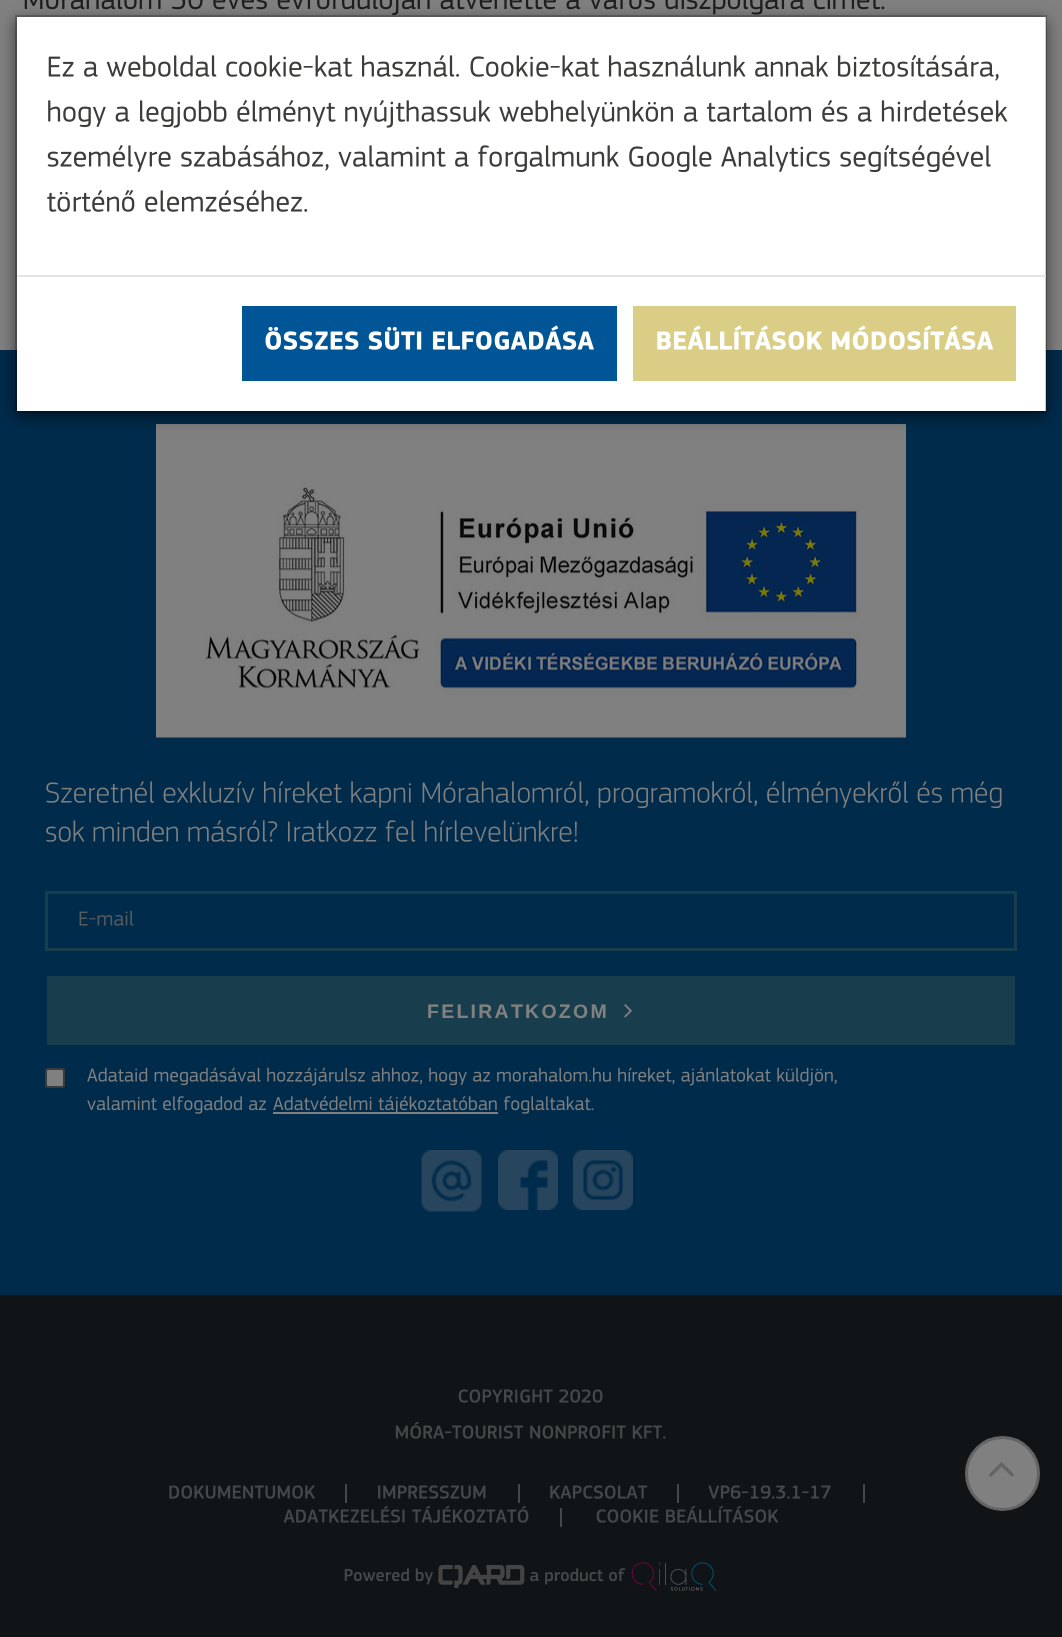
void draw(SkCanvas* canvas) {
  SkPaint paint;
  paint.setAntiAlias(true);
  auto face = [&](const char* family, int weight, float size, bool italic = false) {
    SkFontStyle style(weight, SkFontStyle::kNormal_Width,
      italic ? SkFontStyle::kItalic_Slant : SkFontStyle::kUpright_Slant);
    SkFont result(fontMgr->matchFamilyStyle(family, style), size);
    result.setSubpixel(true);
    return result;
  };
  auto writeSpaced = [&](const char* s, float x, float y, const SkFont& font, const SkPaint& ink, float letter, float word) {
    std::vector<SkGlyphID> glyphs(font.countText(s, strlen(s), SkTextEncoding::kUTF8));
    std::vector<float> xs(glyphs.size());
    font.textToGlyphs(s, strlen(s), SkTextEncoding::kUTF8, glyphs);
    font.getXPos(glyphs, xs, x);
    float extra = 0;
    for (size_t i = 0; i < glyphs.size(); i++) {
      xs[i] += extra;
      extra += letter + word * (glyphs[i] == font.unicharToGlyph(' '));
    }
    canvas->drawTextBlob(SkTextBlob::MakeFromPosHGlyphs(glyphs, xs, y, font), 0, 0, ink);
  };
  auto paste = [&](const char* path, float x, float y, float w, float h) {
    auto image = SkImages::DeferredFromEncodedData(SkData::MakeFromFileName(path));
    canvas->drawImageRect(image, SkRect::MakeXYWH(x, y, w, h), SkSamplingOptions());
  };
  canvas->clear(0xff808080);
  paste("img/7.png", 24, 0, 861, 16);
  paint.setColor(0xff002b4b);
  canvas->drawRect(SkRect::MakeXYWH(0, 350, 1062, 945), paint);
  paste("img/9.png", 156, 424, 750, 314);
  paint.setColor(0x80000000);
  paint.setMaskFilter(SkMaskFilter::MakeBlur(kNormal_SkBlurStyle, 7));
  canvas->drawRect(SkRect::MakeXYWH(15, 20, 1032, 397), paint);
  paint.setMaskFilter(nullptr);
  paint.setColor(0xffffffff);
  canvas->drawRect(SkRect::MakeXYWH(17, 17, 1029, 394), paint);
  paint.setStroke(true);
  paint.setStrokeWidth(2);
  paint.setColor(0x33000000);
  canvas->drawRect(SkRect::MakeXYWH(16, 16, 1030, 396), paint);
  paste("img/1.png", 48, 55, 951, 26);
  paste("img/2.png", 48, 100, 960, 28);
  paste("img/3.png", 47, 145, 944, 28);
  paste("img/4.png", 47, 190, 261, 22);
  paint.setStroke(false);
  paint.setColor(0xffe5e5e5);
  canvas->drawRect(SkRect::MakeXYWH(17, 275, 1029, 2), paint);
  paint.setColor(0xff005596);
  canvas->drawRect(SkRect::MakeXYWH(242, 306, 375, 75), paint);
  paste("img/5.png", 265, 325, 329, 25);
  paint.setColor(0xffdace87);
  canvas->drawRect(SkRect::MakeXYWH(633, 306, 383, 75), paint);
  paste("img/6.png", 657, 325, 336, 25);
  paint.setColor(0xff111416);
  canvas->drawRect(SkRect::MakeXYWH(0, 1295, 1062, 342), paint);
  paint.setColor(0xff808080);
  canvas->drawCircle(1002.5f, 1473.5f, 36, paint);
  paint.setStroke(true);
  paint.setStrokeWidth(3);
  paint.setColor(0xff656464);
  canvas->drawCircle(1002.5f, 1473.5f, 36, paint);
  paste("img/8.png", 989, 1462, 25, 15);
  paste("img/10.png", 46, 781, 956, 28);
  paste("img/11.png", 46, 820, 531, 22);
  paint.setColor(0xff183d4c);
  canvas->drawRect(SkRect::MakeXYWH(46.5f, 892.5f, 969, 57), paint);
  paste("img/12.png", 79, 910, 55, 16);
  paint.setStroke(false);
  canvas->drawRect(SkRect::MakeXYWH(47, 976, 968, 69), paint);
  paste("img/13.png", 624, 1004, 8, 14);
  paint.setColor(0xff808080);
  canvas->drawRoundRect(SkRect::MakeXYWH(46, 1069, 18, 18), 2, 2, paint);
  paint.setStroke(true);
  paint.setStrokeWidth(2);
  paint.setColor(0xff3b3b3b);
  canvas->drawRoundRect(SkRect::MakeXYWH(46, 1069, 18, 18), 2, 2, paint);
  paste("img/14.png", 87, 1067, 750, 19);
  paste("img/15.png", 87, 1096, 179, 18);
  paste("img/16.png", 273, 1096, 224, 16);
  paste("img/17.png", 503, 1096, 91, 18);
  paint.setStroke(false);
  paint.setColor(0xff808080);
  canvas->drawRect(SkRect::MakeXYWH(273, 1112, 225, 2), paint);
  paste("img/18.png", 421, 1150, 61, 62);
  paste("img/19.png", 498, 1150, 60, 60);
  paste("img/20.png", 573, 1150, 60, 60);
  paste("img/21.png", 458, 1389, 145, 14);
  paste("img/22.png", 395, 1421, 271, 18);
  paste("img/23.png", 169, 1485, 146, 14);
  paint.setColor(0xff454848);
  canvas->drawRect(SkRect::MakeXYWH(345, 1484, 2, 19), paint);
  paste("img/24.png", 378, 1485, 108, 14);
  canvas->drawRect(SkRect::MakeXYWH(518, 1484, 2, 19), paint);
  paste("img/25.png", 550, 1485, 98, 14);
  canvas->drawRect(SkRect::MakeXYWH(677, 1484, 2, 19), paint);
  paste("img/26.png", 708, 1485, 123, 14);
  canvas->drawRect(SkRect::MakeXYWH(863, 1484, 2, 19), paint);
  paste("img/27.png", 283, 1505, 246, 18);
  canvas->drawRect(SkRect::MakeXYWH(560, 1508, 2, 19), paint);
  paste("img/28.png", 596, 1505, 183, 18);
  paste("img/29.png", 344, 1568, 89, 17);
  paste("img/30.png", 438, 1565, 87, 23);
  paste("img/31.png", 530, 1568, 96, 17);
  paste("img/32.png", 631, 1562, 86, 29);
  auto f0 = face("Liberation Sans", 700, 19.5f);
  paint.setColor(0xff808080);
  writeSpaced("FELIRATKOZOM", 427, 1018, f0, paint, 2.25f, 0);
}
